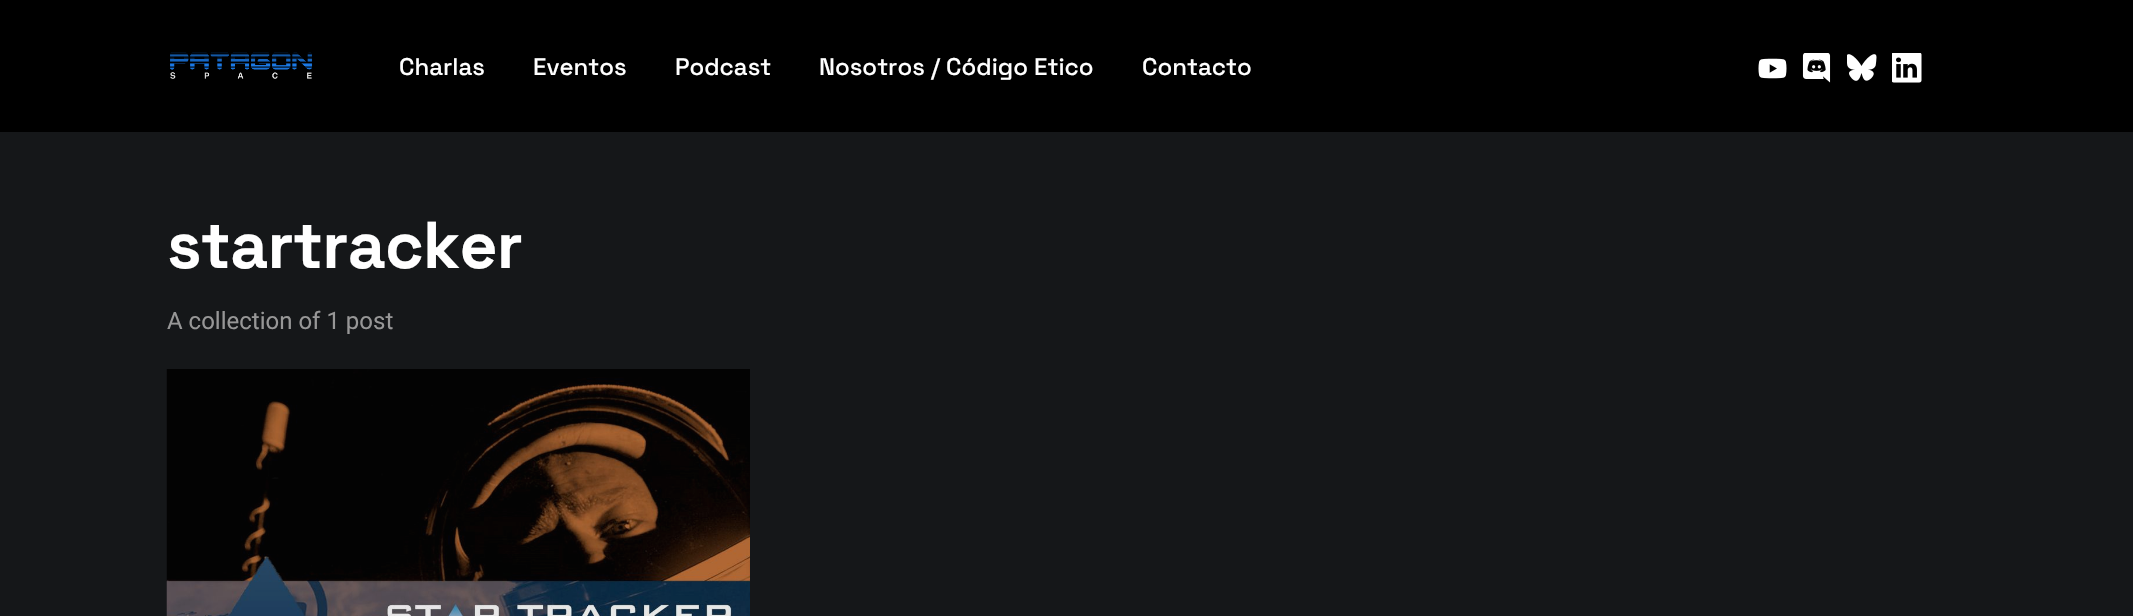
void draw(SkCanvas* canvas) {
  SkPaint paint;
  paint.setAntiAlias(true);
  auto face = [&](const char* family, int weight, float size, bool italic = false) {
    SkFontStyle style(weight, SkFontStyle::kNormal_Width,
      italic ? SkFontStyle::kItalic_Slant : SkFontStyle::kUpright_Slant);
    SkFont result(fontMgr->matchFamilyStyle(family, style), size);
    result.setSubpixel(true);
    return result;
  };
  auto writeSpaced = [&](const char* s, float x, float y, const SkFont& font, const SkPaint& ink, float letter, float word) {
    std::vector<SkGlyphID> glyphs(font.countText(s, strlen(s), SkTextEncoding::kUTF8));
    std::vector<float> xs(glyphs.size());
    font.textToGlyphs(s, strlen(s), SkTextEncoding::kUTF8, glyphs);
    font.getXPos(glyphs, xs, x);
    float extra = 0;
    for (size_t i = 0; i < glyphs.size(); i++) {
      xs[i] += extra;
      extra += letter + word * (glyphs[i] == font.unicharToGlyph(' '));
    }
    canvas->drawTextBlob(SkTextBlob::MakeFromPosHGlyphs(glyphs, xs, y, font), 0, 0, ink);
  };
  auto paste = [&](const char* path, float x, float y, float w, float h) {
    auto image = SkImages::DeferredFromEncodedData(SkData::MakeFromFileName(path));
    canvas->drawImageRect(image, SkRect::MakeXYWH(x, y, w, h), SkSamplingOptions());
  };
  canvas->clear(0xff151719);
  paint.setColor(0xff000000);
  canvas->drawRect(SkRect::MakeXYWH(0, 0, 2133, 132), paint);
  paste("img/1.png", 170, 52, 143, 27);
  paste("img/2.png", 1758, 58, 29, 21);
  paste("img/3.png", 1802, 53, 29, 30);
  paste("img/4.png", 1847, 54, 30, 27);
  paste("img/5.png", 1892, 53, 30, 30);
  paste("img/6.png", 166, 369, 584, 247);
  auto f0 = face("Space Grotesk", 500, 24);
  paint.setColor(0xffffffff);
  {
    const struct { const char* s; float x, y; } items[] = {
      {"Charlas", 399, 75},
      {"Eventos", 533, 75},
      {"Podcast", 675, 75},
      {"Nosotros / Código Etico", 819, 75},
      {"Contacto", 1142, 75},
    };
    for (auto [s, x, y] : items) {
      canvas->drawString(s, x, y, f0, paint);
    }
  }
  auto f1 = face("Space Grotesk", 300, 66);
  writeSpaced("startracker", 167, 268, f1, paint, -0.75f, 0);
  auto f2 = face("Roboto", 400, 24);
  paint.setColor(0xff979797);
  canvas->drawString("A collection of 1 post", 167, 329, f2, paint);
}
